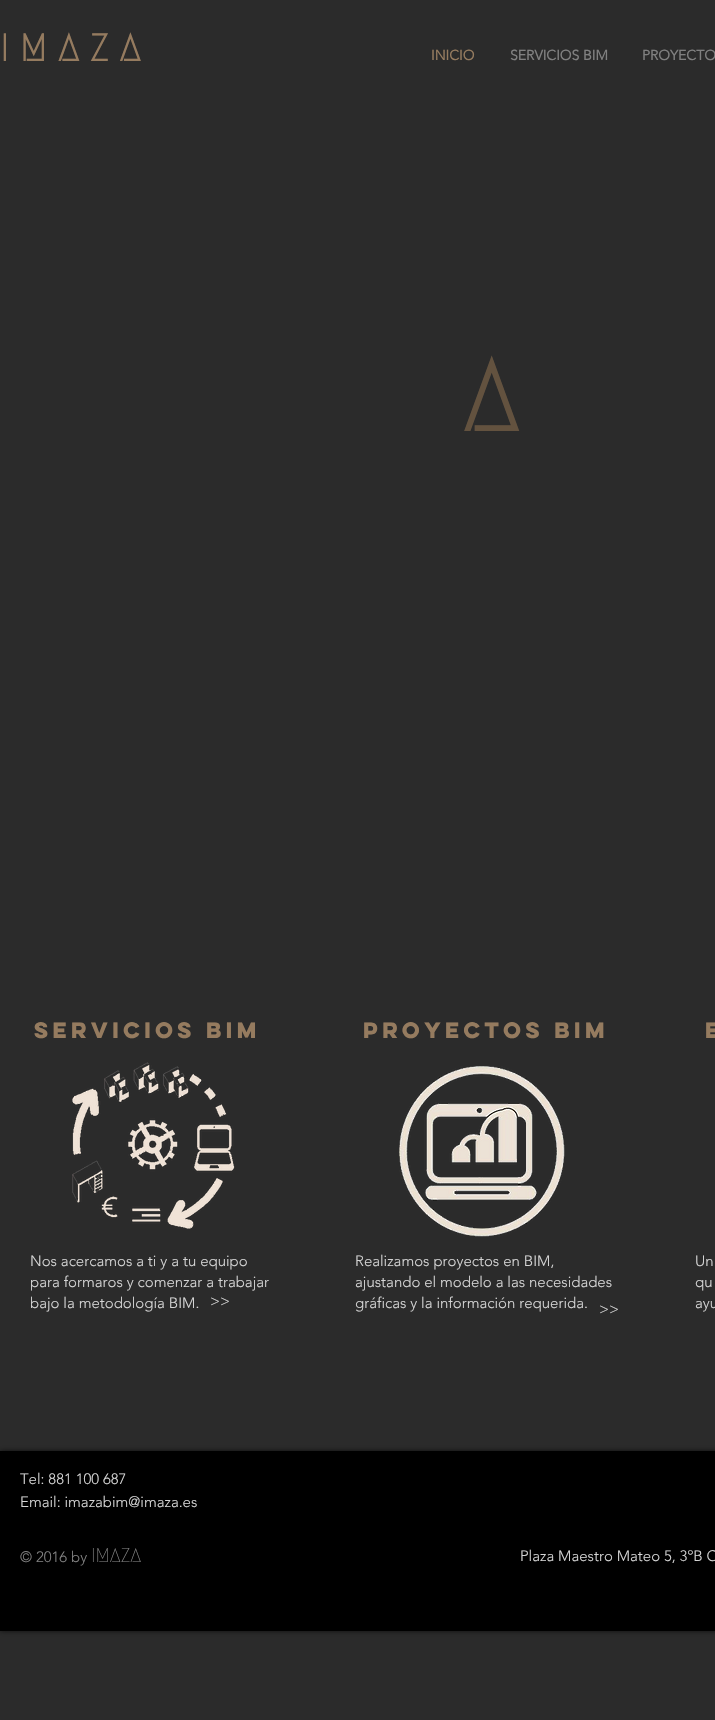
void draw(SkCanvas* canvas) {
  SkPaint paint;
  paint.setAntiAlias(true);
  auto face = [&](const char* family, int weight, float size, bool italic = false) {
    SkFontStyle style(weight, SkFontStyle::kNormal_Width,
      italic ? SkFontStyle::kItalic_Slant : SkFontStyle::kUpright_Slant);
    SkFont result(fontMgr->matchFamilyStyle(family, style), size);
    result.setSubpixel(true);
    return result;
  };
  auto writeSpaced = [&](const char* s, float x, float y, const SkFont& font, const SkPaint& ink, float letter, float word) {
    std::vector<SkGlyphID> glyphs(font.countText(s, strlen(s), SkTextEncoding::kUTF8));
    std::vector<float> xs(glyphs.size());
    font.textToGlyphs(s, strlen(s), SkTextEncoding::kUTF8, glyphs);
    font.getXPos(glyphs, xs, x);
    float extra = 0;
    for (size_t i = 0; i < glyphs.size(); i++) {
      xs[i] += extra;
      extra += letter + word * (glyphs[i] == font.unicharToGlyph(' '));
    }
    canvas->drawTextBlob(SkTextBlob::MakeFromPosHGlyphs(glyphs, xs, y, font), 0, 0, ink);
  };
  auto paste = [&](const char* path, float x, float y, float w, float h) {
    auto image = SkImages::DeferredFromEncodedData(SkData::MakeFromFileName(path));
    canvas->drawImageRect(image, SkRect::MakeXYWH(x, y, w, h), SkSamplingOptions());
  };
  canvas->clear(0xff2b2b2b);
  paste("img/1.png", 72, 1062, 163, 167);
  paste("img/2.png", 399, 1066, 166, 171);
  paint.setColor(0xb3000000);
  paint.setMaskFilter(SkMaskFilter::MakeBlur(kNormal_SkBlurStyle, 2.5f));
  canvas->drawRect(SkRect::MakeXYWH(0, 1451, 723, 180), paint);
  paint.setMaskFilter(nullptr);
  paint.setColor(0xff000000);
  canvas->drawRect(SkRect::MakeXYWH(0, 1451, 715, 180), paint);
  auto f0 = face("Megrim", 700, 38);
  paint.setColor(0xff957b5f);
  canvas->drawString("I M A Z A", 0, 61, f0, paint);
  auto f1 = face("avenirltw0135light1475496", 700, 14);
  canvas->drawString("INICIO", 431, 60, f1, paint);
  paint.setColor(0xff808080);
  canvas->drawString("SERVICIOS BIM", 510, 60, f1, paint);
  canvas->drawString("PROYECTO", 642, 60, f1, paint);
  auto f2 = face("Megrim", 700, 100);
  paint.setColor(0xff63523f);
  writeSpaced("A", 463, 431, f2, paint, 20, 0);
  auto f3 = face("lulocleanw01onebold", 700, 20);
  paint.setColor(0xff957b5f);
  {
    const struct { const char* s; float x, y; } items[] = {
      {"SERVICIOS BIM", 34, 1038},
      {"PROYECTOS BIM", 363, 1038},
      {"E", 705, 1038},
    };
    for (auto [s, x, y] : items) {
      canvas->drawString(s, x, y, f3, paint);
    }
  }
  auto f4 = face("avenirltw0135light1475496", 300, 15);
  paint.setColor(0xffd5d5d5);
  {
    const struct { const char* s; float x, y; } items[] = {
      {"Nos acercamos a ti y a tu equipo", 30, 1266},
      {"para formaros y comenzar a trabajar", 30, 1287},
      {"bajo la metodología BIM.", 30, 1308},
      {"Realizamos proyectos en BIM,", 355, 1266},
      {"ajustando el modelo a las necesidades", 355, 1287},
      {"gráficas y la información requerida.", 355, 1308},
      {"Un", 695, 1266},
      {"qu", 695, 1287},
      {"ayu", 695, 1308},
      {">>", 210, 1306},
      {">>", 599, 1314},
      {"Tel: 881 100 687", 20, 1484},
      {"Email: imazabim@imaza.es", 20, 1507},
    };
    for (auto [s, x, y] : items) {
      canvas->drawString(s, x, y, f4, paint);
    }
  }
  paint.setColor(0xff808080);
  canvas->drawString("© 2016 by", 20, 1562, f4, paint);
  auto f5 = face("Megrim", 500, 20);
  canvas->drawString("IMAZA", 91, 1562, f5, paint);
  paint.setColor(0xffd5d5d5);
  canvas->drawString("Plaza Maestro Mateo 5, 3ºB C", 520, 1561, f4, paint);
}
